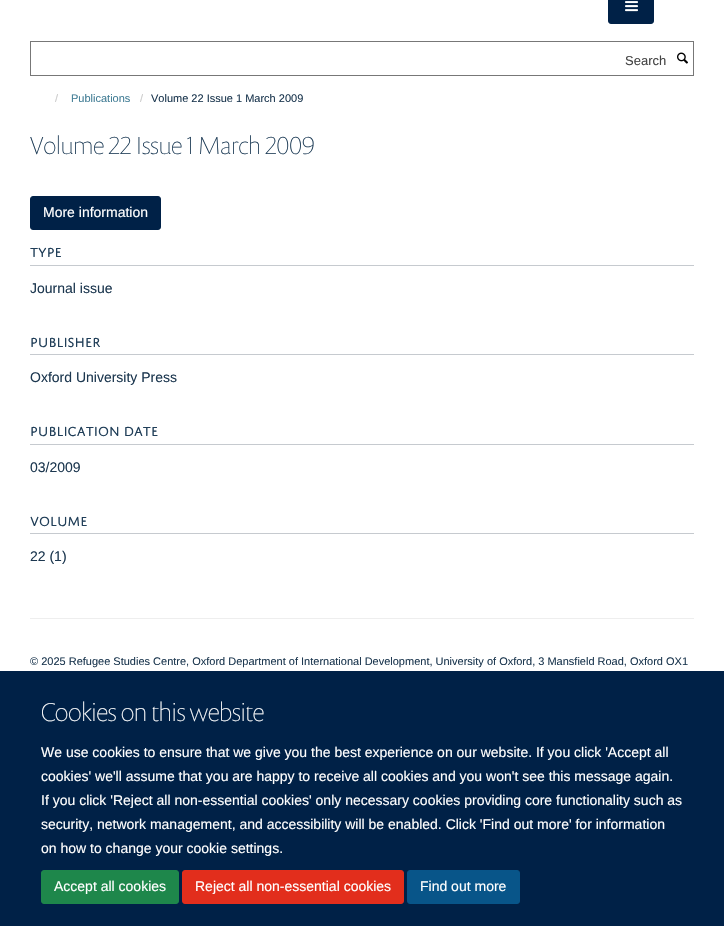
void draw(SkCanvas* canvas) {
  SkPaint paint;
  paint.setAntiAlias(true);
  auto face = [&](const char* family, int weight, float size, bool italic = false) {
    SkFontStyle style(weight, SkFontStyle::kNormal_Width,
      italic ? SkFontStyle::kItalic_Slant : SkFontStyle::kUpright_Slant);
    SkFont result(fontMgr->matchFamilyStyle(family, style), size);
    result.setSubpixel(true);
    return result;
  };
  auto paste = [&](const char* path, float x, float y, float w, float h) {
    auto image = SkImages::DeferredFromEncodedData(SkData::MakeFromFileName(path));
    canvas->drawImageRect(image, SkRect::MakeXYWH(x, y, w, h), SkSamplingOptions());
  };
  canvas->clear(0xffffffff);
  paint.setColor(0xff002147);
  canvas->drawRoundRect(SkRect::MakeXYWH(608.5f, -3.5f, 45, 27), 2.5f, 2.5f, paint);
  paint.setStroke(true);
  paint.setStrokeWidth(1);
  canvas->drawRoundRect(SkRect::MakeXYWH(608.5f, -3.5f, 45, 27), 2.5f, 2.5f, paint);
  paste("img/1.png", 625, 1, 13, 11);
  paint.setColor(0xff777777);
  canvas->drawRect(SkRect::MakeXYWH(30.5f, 41.5f, 663, 34), paint);
  paste("img/2.png", 677, 52, 11, 12);
  paint.setStroke(false);
  paint.setColor(0xff002147);
  canvas->drawRoundRect(SkRect::MakeXYWH(30.5f, 196.5f, 130, 33), 2.5f, 2.5f, paint);
  paint.setStroke(true);
  canvas->drawRoundRect(SkRect::MakeXYWH(30.5f, 196.5f, 130, 33), 2.5f, 2.5f, paint);
  paint.setStroke(false);
  {
    const struct { float x, y, w, h; SkColor color; } items[] = {
      {30, 265, 664, 1, 0xffc6cacf},
      {30, 354, 664, 1, 0xffc6cacf},
      {30, 444, 664, 1, 0xffc6cacf},
      {30, 533, 664, 1, 0xffc6cacf},
      {30, 618, 664, 1, 0xffeeeeee},
      {0, 671, 724, 255, 0xff002147},
    };
    for (auto [x, y, w, h, color] : items) {
      paint.setColor(color);
      canvas->drawRect(SkRect::MakeXYWH(x, y, w, h), paint);
    }
  }
  paint.setColor(0xff1e874b);
  canvas->drawRoundRect(SkRect::MakeXYWH(41.5f, 870.5f, 137, 33), 2.5f, 2.5f, paint);
  paint.setStroke(true);
  canvas->drawRoundRect(SkRect::MakeXYWH(41.5f, 870.5f, 137, 33), 2.5f, 2.5f, paint);
  paint.setStroke(false);
  paint.setColor(0xffe22e1c);
  canvas->drawRoundRect(SkRect::MakeXYWH(182.5f, 870.5f, 221, 33), 2.5f, 2.5f, paint);
  paint.setStroke(true);
  canvas->drawRoundRect(SkRect::MakeXYWH(182.5f, 870.5f, 221, 33), 2.5f, 2.5f, paint);
  paint.setStroke(false);
  paint.setColor(0xff085589);
  canvas->drawRoundRect(SkRect::MakeXYWH(407.5f, 870.5f, 112, 33), 2.5f, 2.5f, paint);
  paint.setStroke(true);
  canvas->drawRoundRect(SkRect::MakeXYWH(407.5f, 870.5f, 112, 33), 2.5f, 2.5f, paint);
  auto f0 = face("Liberation Sans", 400, 13);
  paint.setStroke(false);
  paint.setColor(0xff444444);
  canvas->drawString("Search", 625, 65, f0, paint);
  auto f1 = face("Liberation Sans", 400, 11);
  paint.setColor(0xffcccccc);
  canvas->drawString("/", 55, 102, f1, paint);
  paint.setColor(0xff437e96);
  canvas->drawString("Publications", 71, 102, f1, paint);
  paint.setColor(0xffcccccc);
  canvas->drawString("/", 140, 102, f1, paint);
  paint.setColor(0xff1d3850);
  canvas->drawString("Volume 22 Issue 1 March 2009", 151, 102, f1, paint);
  auto f2 = face("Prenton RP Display", 100, 25);
  paint.setColor(0xff203e58);
  canvas->drawString("Volume 22 Issue 1 March 2009", 30, 154, f2, paint);
  auto f3 = face("Liberation Sans", 400, 14);
  paint.setColor(0xffffffff);
  canvas->drawString("More information", 43, 217, f3, paint);
  auto f4 = face("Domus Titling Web", 400, 14);
  paint.setColor(0xff203e58);
  canvas->drawString("TYPE", 30, 257, f4, paint);
  paint.setColor(0xff1d3850);
  canvas->drawString("Journal issue", 30, 293, f3, paint);
  paint.setColor(0xff203e58);
  canvas->drawString("PUBLISHER", 30, 347, f4, paint);
  paint.setColor(0xff1d3850);
  canvas->drawString("Oxford University Press", 30, 382, f3, paint);
  paint.setColor(0xff203e58);
  canvas->drawString("PUBLICATION DATE", 30, 436, f4, paint);
  paint.setColor(0xff1d3850);
  canvas->drawString("03/2009", 30, 472, f3, paint);
  paint.setColor(0xff203e58);
  canvas->drawString("VOLUME", 30, 526, f4, paint);
  paint.setColor(0xff1d3850);
  canvas->drawString("22 (1)", 30, 561, f3, paint);
  canvas->drawString("© 2025 Refugee Studies Centre, Oxford Department of International Development, University of Oxford, 3 Mansfield Road, Oxford OX1", 30, 665, f1, paint);
  auto f5 = face("Prenton RP Display", 100, 26);
  paint.setColor(0xffffffff);
  canvas->drawString("Cookies on this website", 41, 721, f5, paint);
  {
    const struct { const char* s; float x, y; } items[] = {
      {"We use cookies to ensure that we give you the best experience on our website. If you click 'Accept all", 41, 757},
      {"cookies' we'll assume that you are happy to receive all cookies and you won't see this message again.", 41, 781},
      {"If you click 'Reject all non-essential cookies' only necessary cookies providing core functionality such as", 41, 805},
      {"security, network management, and accessibility will be enabled. Click 'Find out more' for information", 41, 829},
      {"on how to change your cookie settings.", 41, 853},
      {"Accept all cookies", 54, 891},
      {"Reject all non-essential cookies", 195, 891},
      {"Find out more", 420, 891},
    };
    for (auto [s, x, y] : items) {
      canvas->drawString(s, x, y, f3, paint);
    }
  }
}
